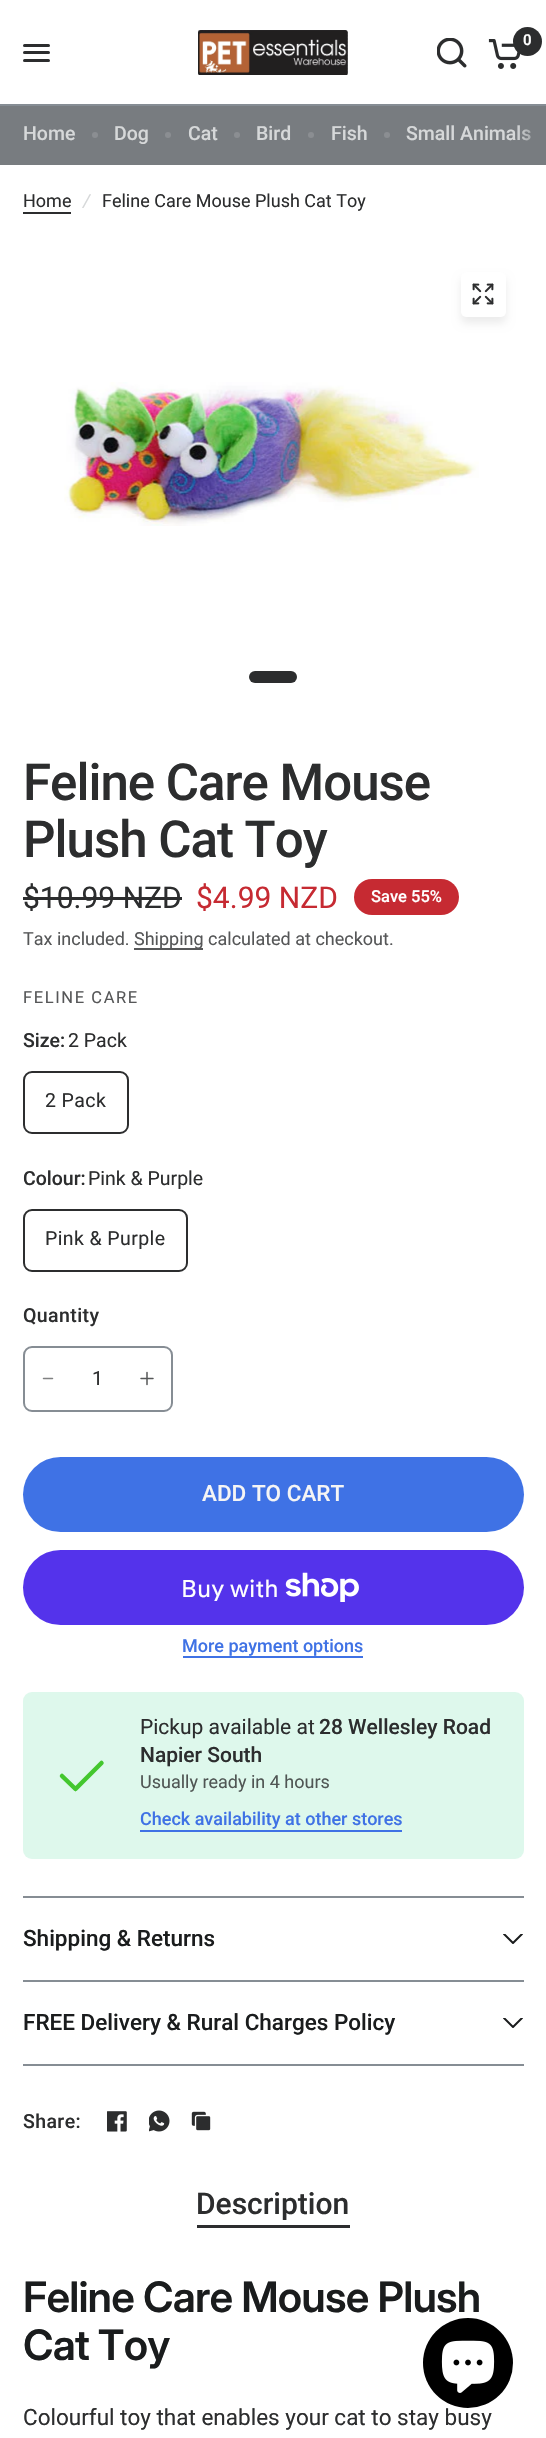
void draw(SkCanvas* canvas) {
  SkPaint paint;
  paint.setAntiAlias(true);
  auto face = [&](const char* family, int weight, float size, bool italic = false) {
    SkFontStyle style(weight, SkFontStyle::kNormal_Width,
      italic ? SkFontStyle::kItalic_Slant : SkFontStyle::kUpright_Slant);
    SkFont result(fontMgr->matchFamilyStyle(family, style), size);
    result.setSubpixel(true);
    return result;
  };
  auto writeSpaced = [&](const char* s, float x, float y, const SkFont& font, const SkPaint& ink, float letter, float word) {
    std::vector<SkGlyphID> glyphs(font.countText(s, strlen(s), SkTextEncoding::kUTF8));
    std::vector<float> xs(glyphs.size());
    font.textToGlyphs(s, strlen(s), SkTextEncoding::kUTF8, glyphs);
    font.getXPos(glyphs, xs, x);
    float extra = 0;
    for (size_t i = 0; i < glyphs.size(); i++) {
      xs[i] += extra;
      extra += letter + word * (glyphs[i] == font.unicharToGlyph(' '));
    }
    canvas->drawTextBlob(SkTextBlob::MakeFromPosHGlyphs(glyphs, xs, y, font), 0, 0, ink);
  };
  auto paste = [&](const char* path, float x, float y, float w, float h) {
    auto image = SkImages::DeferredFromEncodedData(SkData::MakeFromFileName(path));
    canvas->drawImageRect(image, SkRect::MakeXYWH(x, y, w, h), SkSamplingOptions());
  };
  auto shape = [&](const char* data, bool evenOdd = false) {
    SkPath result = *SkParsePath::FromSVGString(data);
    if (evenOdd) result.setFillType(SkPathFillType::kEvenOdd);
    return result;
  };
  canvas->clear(0xff787c80);
  paint.setColor(0xffffffff);
  canvas->drawRect(SkRect::MakeXYWH(0, 0, 546, 104), paint);
  paste("img/1.png", 198, 30, 150, 45);
  paste("img/2.png", 437, 38, 30, 30);
  paste("img/3.png", 488, 39, 33, 30);
  paint.setColor(0xff2c2d2e);
  canvas->drawCircle(527.5f, 41.5f, 14.5f, paint);
  canvas->drawRoundRect(SkRect::MakeXYWH(23, 44, 27, 3), 1.5f, 1.5f, paint);
  canvas->drawRoundRect(SkRect::MakeXYWH(23, 51, 27, 3), 1.5f, 1.5f, paint);
  canvas->drawRoundRect(SkRect::MakeXYWH(23, 59, 27, 3), 1.5f, 1.5f, paint);
  paint.setColor(0xff868d94);
  canvas->drawRect(SkRect::MakeXYWH(0, 104, 546, 2), paint);
  paint.setColor(0xff8b8e92);
  canvas->drawCircle(95, 135, 3, paint);
  canvas->drawCircle(168, 135, 3, paint);
  canvas->drawCircle(237, 135, 3, paint);
  canvas->drawCircle(311, 135, 3, paint);
  canvas->drawCircle(387, 135, 3, paint);
  paint.setColor(0xffffffff);
  canvas->drawRect(SkRect::MakeXYWH(0, 165, 546, 2273), paint);
  paint.setColor(0xff2c2d2e);
  canvas->drawRect(SkRect::MakeXYWH(23, 212, 48, 2), paint);
  paint.setColor(0x14000000);
  paint.setMaskFilter(SkMaskFilter::MakeBlur(kNormal_SkBlurStyle, 4.5f));
  canvas->drawRoundRect(SkRect::MakeXYWH(461, 278, 45, 45), 5, 5, paint);
  paint.setMaskFilter(nullptr);
  paint.setColor(0xffffffff);
  canvas->drawRoundRect(SkRect::MakeXYWH(461, 272, 45, 45), 5, 5, paint);
  paste("img/4.png", 472, 283, 22, 22);
  paste("img/5.png", 64, 382, 415, 144);
  paint.setColor(0xff2c2d2e);
  canvas->drawRoundRect(SkRect::MakeXYWH(249, 671, 48, 12), 6, 6, paint);
  canvas->drawRect(SkRect::MakeXYWH(23, 897, 159, 3), paint);
  paint.setColor(0xffc62a32);
  canvas->drawRoundRect(SkRect::MakeXYWH(354, 879, 105, 36), 18, 18, paint);
  paint.setColor(0xff565758);
  canvas->drawRect(SkRect::MakeXYWH(134, 948, 69, 2), paint);
  paint.setStroke(true);
  paint.setStrokeWidth(2);
  paint.setColor(0xff2c2d2e);
  canvas->drawRoundRect(SkRect::MakeXYWH(24, 1072, 104, 61), 8, 8, paint);
  canvas->drawRoundRect(SkRect::MakeXYWH(24, 1210, 163, 61), 8, 8, paint);
  paint.setColor(0xff868d94);
  canvas->drawRoundRect(SkRect::MakeXYWH(24, 1347, 148, 64), 8, 8, paint);
  paint.setStrokeWidth(1.5f);
  paint.setStrokeCap(SkPaint::kRound_Cap);
  paint.setStrokeJoin(SkPaint::kRound_Join);
  paint.setColor(0xff808182);
  canvas->drawPath(shape("M43.5 1378.5H52.5"), paint);
  paint.setColor(0xff565758);
  canvas->drawPath(shape("M141 1378.5H153M147 1372.5V1384.5"), paint);
  paint.setStroke(false);
  paint.setColor(0xff3f72e5);
  canvas->drawRoundRect(SkRect::MakeXYWH(23, 1457, 501, 75), 37.5f, 37.5f, paint);
  paint.setColor(0xff5433eb);
  canvas->drawRoundRect(SkRect::MakeXYWH(23, 1550, 501, 75), 37.5f, 37.5f, paint);
  paste("img/6.png", 285, 1572, 74, 30);
  paint.setColor(0xff3f72e5);
  canvas->drawRect(SkRect::MakeXYWH(183, 1656, 180, 2), paint);
  paint.setColor(0xffdef8ec);
  canvas->drawRoundRect(SkRect::MakeXYWH(23, 1692, 501, 167), 9, 9, paint);
  paint.setStroke(true);
  paint.setStrokeWidth(4.5f);
  paint.setColor(0xff43c72e);
  canvas->drawPath(shape("M101.5 1763L75.5 1789L62 1776"), paint);
  paint.setStroke(false);
  {
    const struct { float x, y, w, h; SkColor color; } items[] = {
      {140, 1830, 262, 2, 0xff3f72e5},
      {23, 1896, 501, 2, 0xff868d94},
      {23, 1980, 501, 2, 0xff868d94},
    };
    for (auto [x, y, w, h, color] : items) {
      paint.setColor(color);
      canvas->drawRect(SkRect::MakeXYWH(x, y, w, h), paint);
    }
  }
  canvas->save();
  canvas->clipRect(SkRect::MakeXYWH(503, 1934, 21, 12));
  paint.setStroke(true);
  paint.setStrokeWidth(2);
  paint.setColor(0xff1a1c1d);
  canvas->drawPath(shape("M522 1934L513 1943L504 1934"), paint);
  canvas->restore();
  paint.setStroke(false);
  paint.setColor(0xff868d94);
  canvas->drawRect(SkRect::MakeXYWH(23, 2064, 501, 2), paint);
  canvas->save();
  canvas->clipRect(SkRect::MakeXYWH(503, 2018, 21, 12));
  paint.setStroke(true);
  paint.setColor(0xff1a1c1d);
  canvas->drawPath(shape("M522 2018L513 2027L504 2018"), paint);
  canvas->restore();
  paste("img/7.png", 107, 2111, 20, 21);
  paste("img/8.png", 149, 2110, 21, 22);
  paste("img/9.png", 191, 2111, 20, 20);
  paint.setStroke(false);
  paint.setColor(0xff2c2d2e);
  canvas->drawRect(SkRect::MakeXYWH(197, 2225, 153, 3), paint);
  auto f0 = face("Roboto", 600, 15);
  paint.setColor(0xffffffff);
  canvas->drawString("0", 523, 45, f0, paint);
  auto f1 = face("Roboto", 500, 19.5f);
  paint.setColor(0xffd6d8d9);
  {
    const struct { const char* s; float x, y; } items[] = {
      {"Home", 23, 140},
      {"Dog", 114, 140},
      {"Cat", 188, 140},
      {"Bird", 256, 140},
      {"Fish", 331, 140},
      {"Small Animals", 406, 140},
    };
    for (auto [s, x, y] : items) {
      canvas->drawString(s, x, y, f1, paint);
    }
  }
  {
    const SkColor colors[] = {0x00787c80, 0xff787c80};
    const float stops[] = {0, 1};
    const SkPoint ends[] = {{516, 135}, {546, 135}};
    paint.setShader(SkGradientShader::MakeLinear(ends, colors, stops, 2, SkTileMode::kClamp));
    paint.setAlpha(255);
  }
  canvas->drawRect(SkRect::MakeXYWH(518, 125, 13, 16), paint);
  auto f2 = face("Roboto", 400, 18);
  paint.setShader(nullptr);
  paint.setColor(0xff2c2d2e);
  canvas->drawString("Home", 23, 207, f2, paint);
  auto f3 = face("Roboto", 400, 18, true);
  paint.setColor(0xffd6d8d9);
  canvas->drawString("/", 83, 207, f3, paint);
  paint.setColor(0xff2c2d2e);
  canvas->drawString("Feline Care Mouse Plush Cat Toy", 102, 207, f2, paint);
  auto f4 = face("Roboto", 500, 51);
  writeSpaced("Feline Care Mouse", 23, 800, f4, paint, -1, 0);
  writeSpaced("Plush Cat Toy", 23, 857, f4, paint, -1, 0);
  auto f5 = face("Roboto", 400, 30);
  canvas->drawString("$10.99 NZD", 23, 908, f5, paint);
  paint.setColor(0xffc62a32);
  canvas->drawString("$4.99 NZD", 196, 908, f5, paint);
  auto f6 = face("Roboto", 500, 16.5f);
  paint.setColor(0xffffffff);
  canvas->drawString("Save 55%", 371, 902, f6, paint);
  paint.setColor(0xff565758);
  canvas->drawString("Tax included.", 23, 945, f2, paint);
  canvas->drawString("Shipping calculated at checkout.", 134, 945, f2, paint);
  auto f7 = face("Roboto", 400, 16.5f);
  writeSpaced("FELINE CARE", 23, 1003, f7, paint, 1.6f, 0);
  paint.setColor(0xff2c2d2e);
  canvas->drawString("Size:", 23, 1047, f1, paint);
  auto f8 = face("Roboto", 400, 19.5f);
  canvas->drawString("2 Pack", 68, 1047, f8, paint);
  writeSpaced("2 Pack", 45, 1107, f8, paint, 0.4f, 0);
  canvas->drawString("Colour:", 23, 1185, f1, paint);
  canvas->drawString("Pink & Purple", 88, 1185, f8, paint);
  writeSpaced("Pink & Purple", 45, 1245, f8, paint, 0.4f, 0);
  writeSpaced("Quantity", 23, 1322, f1, paint, 0.4f, 0);
  canvas->drawString("1", 92, 1385, f8, paint);
  auto f9 = face("Roboto", 500, 22.5f);
  paint.setColor(0xfff5f5f5);
  canvas->drawString("ADD TO CART", 202, 1501, f9, paint);
  auto f10 = face("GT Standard", 400, 24);
  paint.setColor(0xffffffff);
  canvas->drawString("Buy with", 181, 1597, f10, paint);
  auto f11 = face("Roboto", 500, 18);
  paint.setColor(0xff3f72e5);
  canvas->drawString("More payment options", 182, 1652, f11, paint);
  auto f12 = face("Roboto", 400, 21);
  paint.setColor(0xff2c2d2e);
  canvas->drawString("Pickup available at", 140, 1734, f12, paint);
  auto f13 = face("Roboto", 500, 21);
  canvas->drawString("28 Wellesley Road", 319, 1734, f13, paint);
  canvas->drawString("Napier South", 140, 1762, f13, paint);
  paint.setColor(0xff505654);
  canvas->drawString("Usually ready in 4 hours", 140, 1788, f2, paint);
  paint.setColor(0xff3f72e5);
  canvas->drawString("Check availability at other stores", 140, 1825, f11, paint);
  paint.setColor(0xff1a1c1d);
  canvas->drawString("Shipping & Returns", 23, 1946, f9, paint);
  canvas->drawString("FREE Delivery & Rural Charges Policy", 23, 2030, f9, paint);
  paint.setColor(0xff2c2d2e);
  writeSpaced("Share:", 23, 2128, f1, paint, 0.4f, 0);
  auto f14 = face("Roboto", 500, 30);
  canvas->drawString("Description", 196, 2214, f14, paint);
  auto f15 = face("Inter", 600, 42);
  paint.setColor(0xff1a1c1d);
  writeSpaced("Feline Care Mouse Plush", 23, 2312, f15, paint, -0.8f, 0);
  writeSpaced("Cat Toy", 23, 2360, f15, paint, -0.8f, 0);
  auto f16 = face("Roboto", 400, 22.5f);
  paint.setColor(0xff2c2d2e);
  canvas->drawString("Colourful toy that enables your cat to stay busy", 23, 2425, f16, paint);
  paint.setColor(0xff000000);
  canvas->drawCircle(468, 2363, 45, paint);
  paste("img/10.png", 441, 2340, 54, 53);
}
